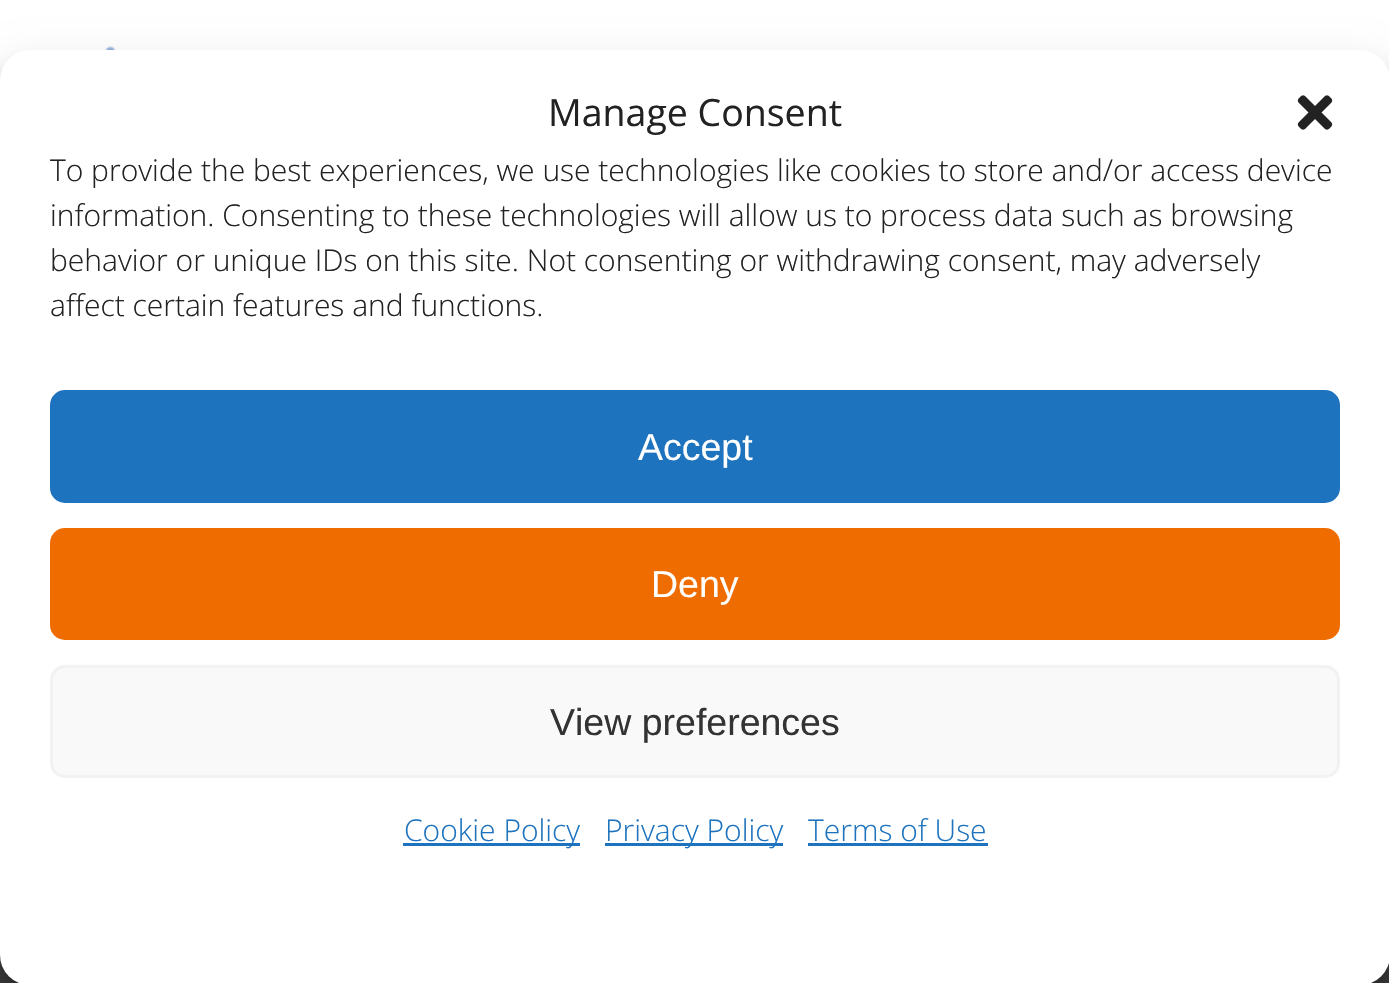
void draw(SkCanvas* canvas) {
  SkPaint paint;
  paint.setAntiAlias(true);
  auto face = [&](const char* family, int weight, float size, bool italic = false) {
    SkFontStyle style(weight, SkFontStyle::kNormal_Width,
      italic ? SkFontStyle::kItalic_Slant : SkFontStyle::kUpright_Slant);
    SkFont result(fontMgr->matchFamilyStyle(family, style), size);
    result.setSubpixel(true);
    return result;
  };
  auto paste = [&](const char* path, float x, float y, float w, float h) {
    auto image = SkImages::DeferredFromEncodedData(SkData::MakeFromFileName(path));
    canvas->drawImageRect(image, SkRect::MakeXYWH(x, y, w, h), SkSamplingOptions());
  };
  canvas->clear(0xff404041);
  paint.setColor(0xffffffff);
  canvas->drawRect(SkRect::MakeXYWH(0, 0, 1389, 80), paint);
  paste("img/1.png", 105, 46, 10, 4);
  paint.setColor(0x3b000000);
  paint.setMaskFilter(SkMaskFilter::MakeBlur(kNormal_SkBlurStyle, 7.5f));
  canvas->drawRoundRect(SkRect::MakeXYWH(0, 65, 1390, 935), 30, 30, paint);
  paint.setMaskFilter(nullptr);
  paint.setColor(0x30000000);
  paint.setMaskFilter(SkMaskFilter::MakeBlur(kNormal_SkBlurStyle, 25));
  canvas->drawRoundRect(SkRect::MakeXYWH(0, 75, 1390, 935), 30, 30, paint);
  paint.setMaskFilter(nullptr);
  paint.setColor(0xffffffff);
  canvas->drawRoundRect(SkRect::MakeXYWH(0, 50, 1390, 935), 30, 30, paint);
  paste("img/2.png", 1297, 95, 36, 35);
  paint.setColor(0xff1e73be);
  canvas->drawRoundRect(SkRect::MakeXYWH(51.5f, 391.5f, 1287, 110), 13.5f, 13.5f, paint);
  paint.setStroke(true);
  paint.setStrokeWidth(3);
  canvas->drawRoundRect(SkRect::MakeXYWH(51.5f, 391.5f, 1287, 110), 13.5f, 13.5f, paint);
  paint.setStroke(false);
  paint.setColor(0xffef6c00);
  canvas->drawRoundRect(SkRect::MakeXYWH(50, 528, 1290, 112), 15, 15, paint);
  paint.setColor(0xfff9f9f9);
  canvas->drawRoundRect(SkRect::MakeXYWH(51.5f, 666.5f, 1287, 110), 13.5f, 13.5f, paint);
  paint.setStroke(true);
  paint.setColor(0xfff2f2f2);
  canvas->drawRoundRect(SkRect::MakeXYWH(51.5f, 666.5f, 1287, 110), 13.5f, 13.5f, paint);
  paint.setStroke(false);
  {
    const struct { float x, y, w, h; SkColor color; } items[] = {
      {403, 843, 177, 3, 0xff1e73be},
      {605, 843, 178, 3, 0xff1e73be},
      {808, 843, 180, 3, 0xff1e73be},
    };
    for (auto [x, y, w, h, color] : items) {
      paint.setColor(color);
      canvas->drawRect(SkRect::MakeXYWH(x, y, w, h), paint);
    }
  }
  auto f0 = face("Open Sans", 400, 37.5f);
  paint.setColor(0xff222222);
  canvas->drawString("Manage Consent", 548, 126, f0, paint);
  auto f1 = face("Open Sans", 300, 30);
  {
    const struct { const char* s; float x, y; } items[] = {
      {"To provide the best experiences, we use technologies like cookies to store and/or access device", 50, 181},
      {"information. Consenting to these technologies will allow us to process data such as browsing", 50, 226},
      {"behavior or unique IDs on this site. Not consenting or withdrawing consent, may adversely", 50, 271},
      {"affect certain features and functions.", 50, 316},
    };
    for (auto [s, x, y] : items) {
      canvas->drawString(s, x, y, f1, paint);
    }
  }
  auto f2 = face("Liberation Sans", 400, 37.5f);
  paint.setColor(0xffffffff);
  canvas->drawString("Accept", 638, 460, f2, paint);
  canvas->drawString("Deny", 651, 597, f2, paint);
  paint.setColor(0xff333333);
  canvas->drawString("View preferences", 550, 735, f2, paint);
  paint.setColor(0xff1e73be);
  {
    const struct { const char* s; float x, y; } items[] = {
      {"Cookie Policy", 404, 841},
      {"Privacy Policy", 605, 841},
      {"Terms of Use", 808, 841},
    };
    for (auto [s, x, y] : items) {
      canvas->drawString(s, x, y, f1, paint);
    }
  }
}
